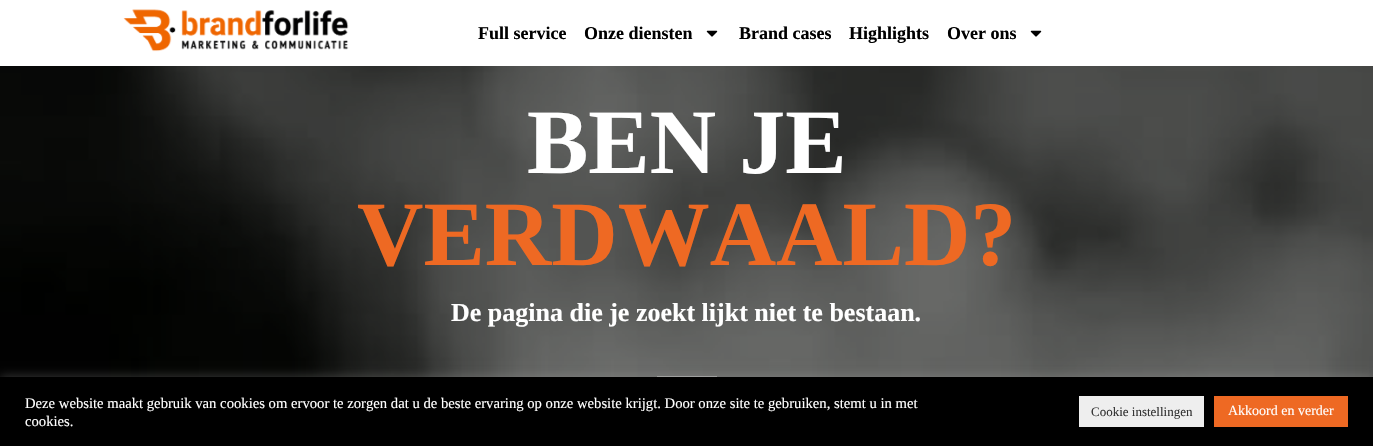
void draw(SkCanvas* canvas) {
  SkPaint paint;
  paint.setAntiAlias(true);
  auto face = [&](const char* family, int weight, float size, bool italic = false) {
    SkFontStyle style(weight, SkFontStyle::kNormal_Width,
      italic ? SkFontStyle::kItalic_Slant : SkFontStyle::kUpright_Slant);
    SkFont result(fontMgr->matchFamilyStyle(family, style), size);
    result.setSubpixel(true);
    return result;
  };
  auto paste = [&](const char* path, float x, float y, float w, float h) {
    auto image = SkImages::DeferredFromEncodedData(SkData::MakeFromFileName(path));
    canvas->drawImageRect(image, SkRect::MakeXYWH(x, y, w, h), SkSamplingOptions());
  };
  canvas->clear(0xffffffff);
  paste("img/1.png", 123, 9, 226, 43);
  paste("img/2.png", 706, 30, 12, 7);
  paste("img/2.png", 1030, 30, 12, 7);
  paste("img/3.png", 0, 66, 1373, 311);
  paint.setColor(0x59ffffff);
  canvas->drawRect(SkRect::MakeXYWH(657, 376, 60, 1), paint);
  paint.setColor(0x4dacabab);
  paint.setMaskFilter(SkMaskFilter::MakeBlur(kNormal_SkBlurStyle, 5));
  canvas->drawRect(SkRect::MakeXYWH(0, 376, 1373, 69), paint);
  paint.setMaskFilter(nullptr);
  {
    const struct { float x, y, w, h; SkColor color; } items[] = {
      {0, 377, 1373, 69, 0xff000000},
      {1079, 396, 125, 31, 0xffeeeeee},
      {1214, 396, 134, 31, 0xffee6923},
    };
    for (auto [x, y, w, h, color] : items) {
      paint.setColor(color);
      canvas->drawRect(SkRect::MakeXYWH(x, y, w, h), paint);
    }
  }
  auto f0 = face("Liberation Serif", 700, 18);
  paint.setColor(0xff000000);
  {
    const struct { const char* s; float x, y; } items[] = {
      {"Full service", 478, 39},
      {"Onze diensten", 584, 39},
      {"Brand cases", 739, 39},
      {"Highlights", 849, 39},
      {"Over ons", 947, 39},
    };
    for (auto [s, x, y] : items) {
      canvas->drawString(s, x, y, f0, paint);
    }
  }
  auto f1 = face("Liberation Serif", 700, 92);
  paint.setColor(0xffffffff);
  canvas->drawString("BEN JE", 527, 173, f1, paint);
  paint.setColor(0xffee6923);
  canvas->drawString("VERDWAALD?", 357, 265, f1, paint);
  auto f2 = face("Liberation Serif", 700, 26);
  paint.setColor(0xffffffff);
  canvas->drawString("De pagina die je zoekt lijkt niet te bestaan.", 451, 321, f2, paint);
  auto f3 = face("Liberation Serif", 400, 14.67f);
  canvas->drawString("Deze website maakt gebruik van cookies om ervoor te zorgen dat u de beste ervaring op onze website krijgt. Door onze site te gebruiken, stemt u in met", 25, 408, f3, paint);
  canvas->drawString("cookies.", 25, 426, f3, paint);
  auto f4 = face("Liberation Serif", 400, 13);
  paint.setColor(0xff333333);
  canvas->drawString("Cookie instellingen", 1091, 416, f4, paint);
  auto f5 = face("Liberation Serif", 400, 14);
  paint.setColor(0xffffffff);
  canvas->drawString("Akkoord en verder", 1228, 415, f5, paint);
}
